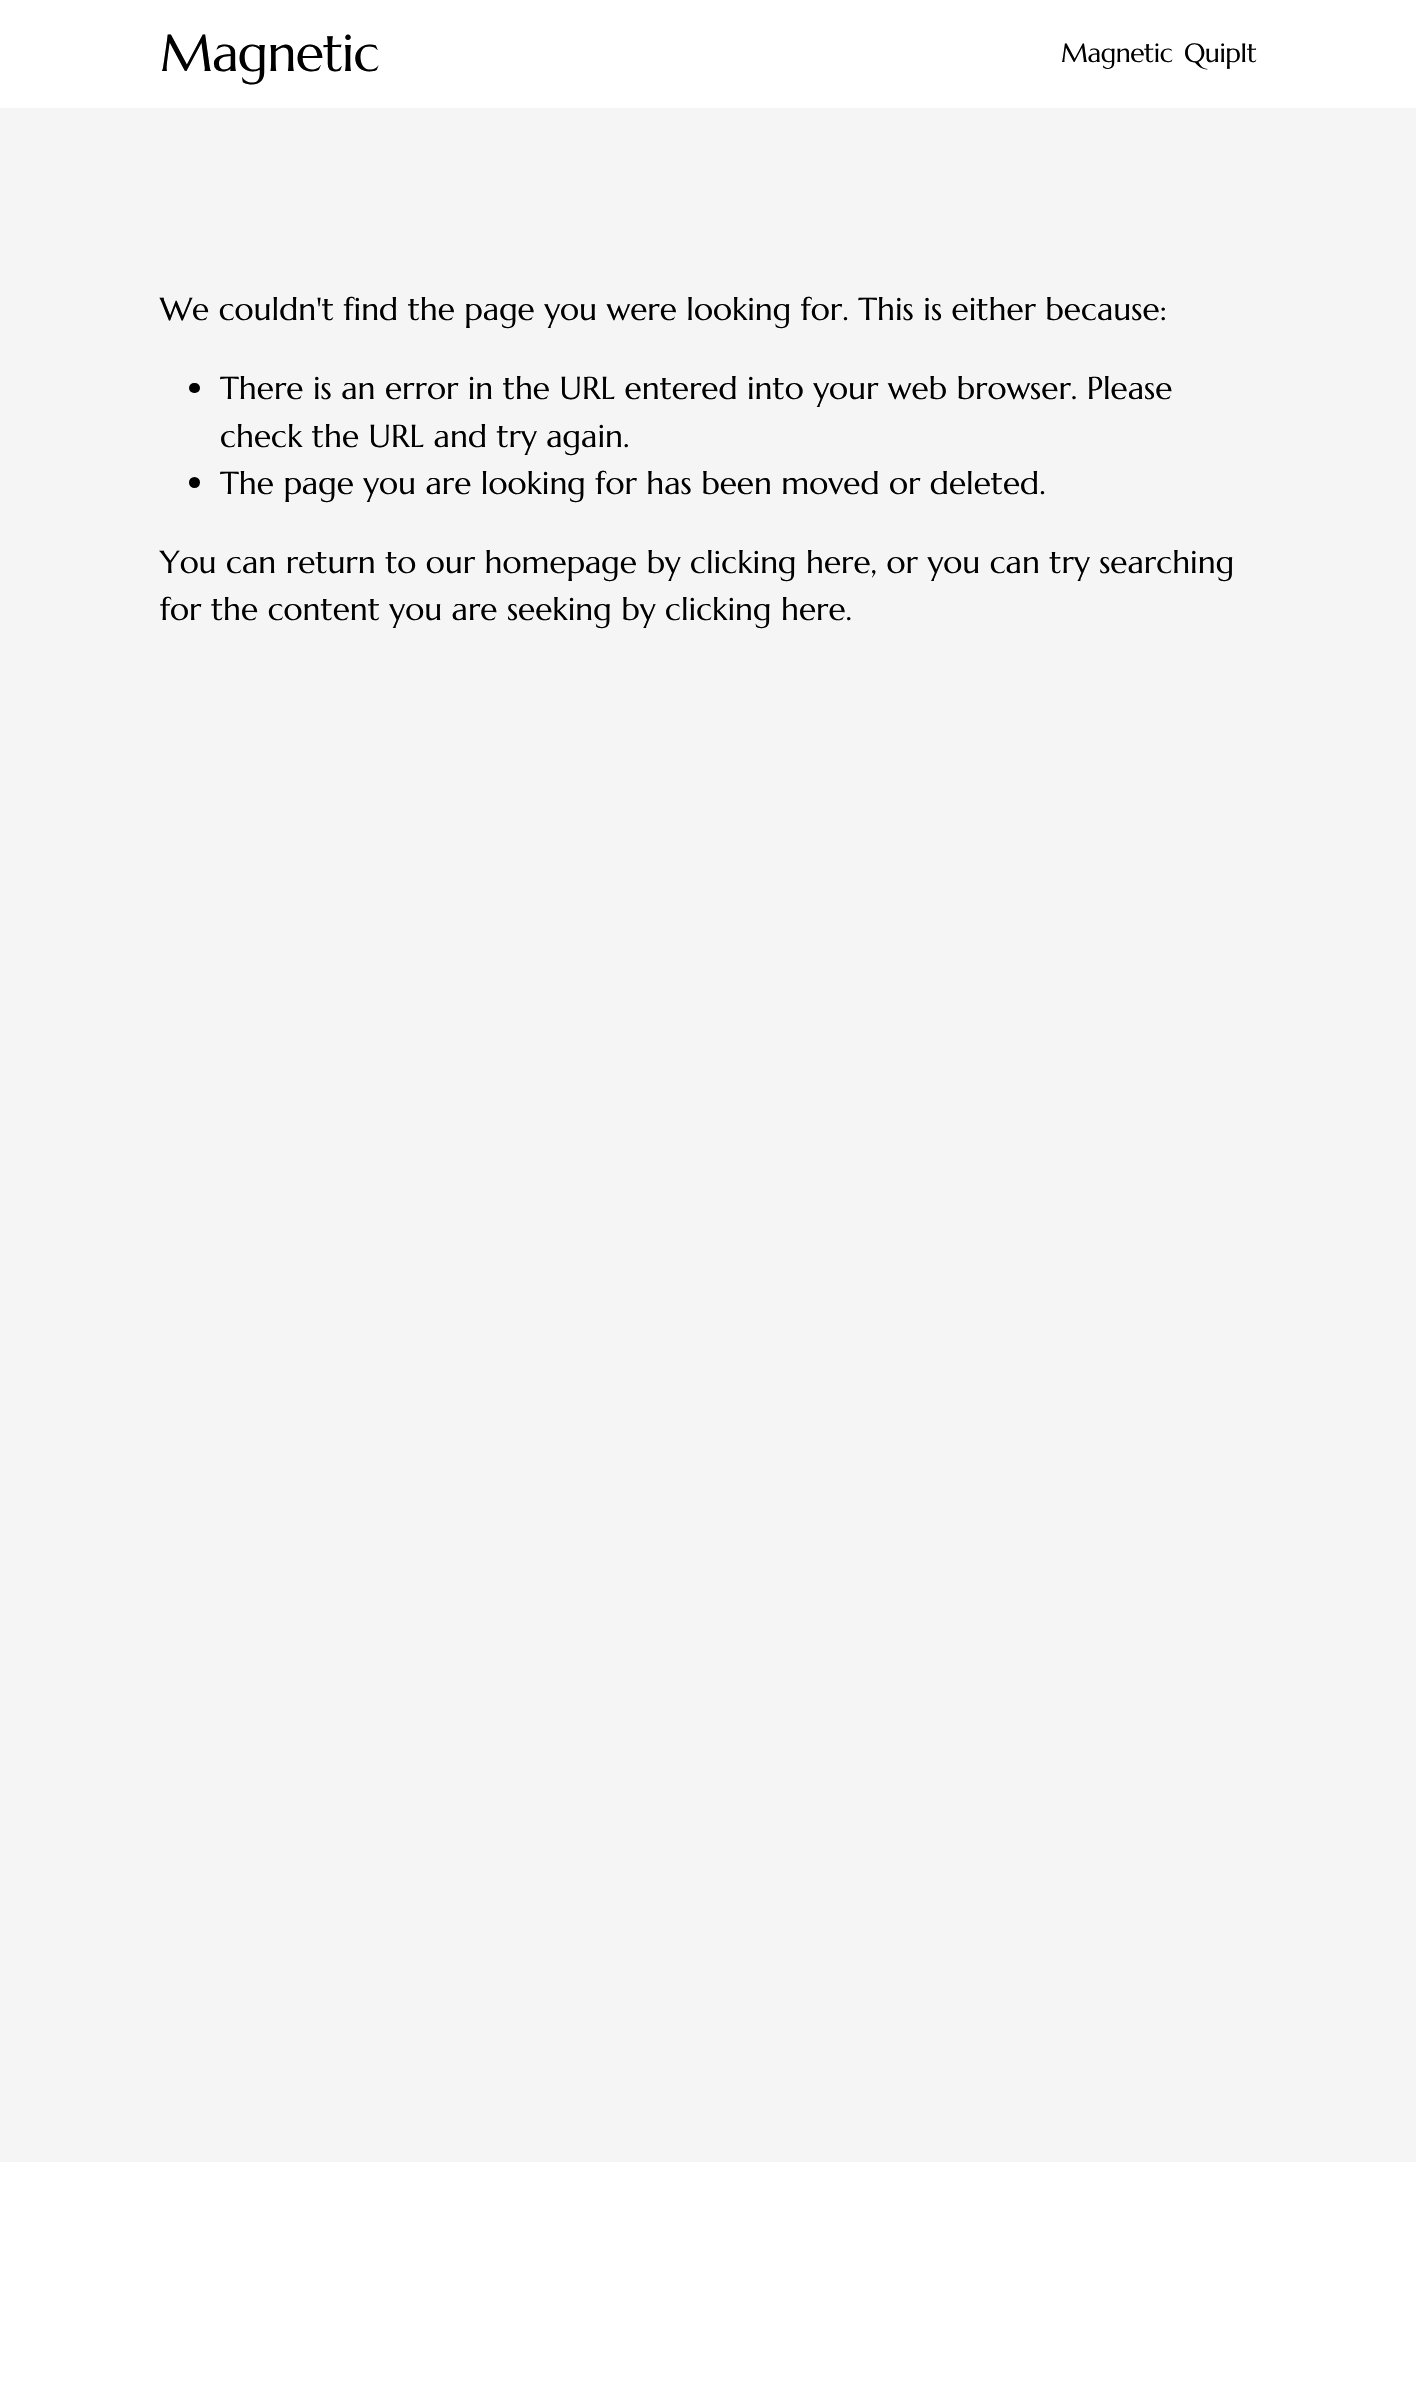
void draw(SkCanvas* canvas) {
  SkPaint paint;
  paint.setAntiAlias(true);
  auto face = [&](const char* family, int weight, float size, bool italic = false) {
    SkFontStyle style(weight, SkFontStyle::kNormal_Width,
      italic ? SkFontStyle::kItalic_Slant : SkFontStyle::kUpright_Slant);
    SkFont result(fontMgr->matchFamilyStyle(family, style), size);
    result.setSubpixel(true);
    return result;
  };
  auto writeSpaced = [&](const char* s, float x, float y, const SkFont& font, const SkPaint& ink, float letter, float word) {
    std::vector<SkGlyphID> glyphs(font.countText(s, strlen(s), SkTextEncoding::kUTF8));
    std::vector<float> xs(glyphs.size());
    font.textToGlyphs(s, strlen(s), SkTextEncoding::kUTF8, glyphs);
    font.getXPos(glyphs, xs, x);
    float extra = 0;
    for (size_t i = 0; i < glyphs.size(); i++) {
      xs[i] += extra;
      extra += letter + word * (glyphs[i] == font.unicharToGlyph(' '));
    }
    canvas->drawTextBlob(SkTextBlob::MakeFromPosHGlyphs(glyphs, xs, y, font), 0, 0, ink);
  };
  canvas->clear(0xfff5f5f5);
  paint.setColor(0xffffffff);
  canvas->drawRect(SkRect::MakeXYWH(0, 0, 1416, 108), paint);
  paint.setColor(0xff000000);
  canvas->drawRoundRect(SkRect::MakeXYWH(189, 383, 11, 10), 5, 5, paint);
  canvas->drawCircle(194.5f, 482.5f, 5.5f, paint);
  paint.setColor(0xffffffff);
  canvas->drawRect(SkRect::MakeXYWH(0, 2162, 1416, 239), paint);
  auto f0 = face("Marcellus", 400, 52);
  paint.setColor(0xff000000);
  writeSpaced("Magnetic", 160, 71, f0, paint, -1, 0);
  auto f1 = face("Marcellus", 400, 26.5f);
  writeSpaced("Magnetic", 1061, 62, f1, paint, -0.5f, 0);
  writeSpaced("QuipIt", 1184, 62, f1, paint, -0.5f, 0);
  auto f2 = face("Marcellus", 400, 31.6f);
  {
    const struct { const char* s; float x, y; } items[] = {
      {"We couldn't find the page you were looking for. This is either because:", 160, 320},
      {"There is an error in the URL entered into your web browser. Please", 220, 399},
      {"check the URL and try again.", 220, 447},
      {"The page you are looking for has been moved or deleted.", 220, 494},
      {"You can return to our homepage by", 160, 573},
      {"clicking here, or you can try searching", 690, 573},
      {"for the content you are seeking by clicking here.", 160, 620},
    };
    for (auto [s, x, y] : items) {
      canvas->drawString(s, x, y, f2, paint);
    }
  }
}
